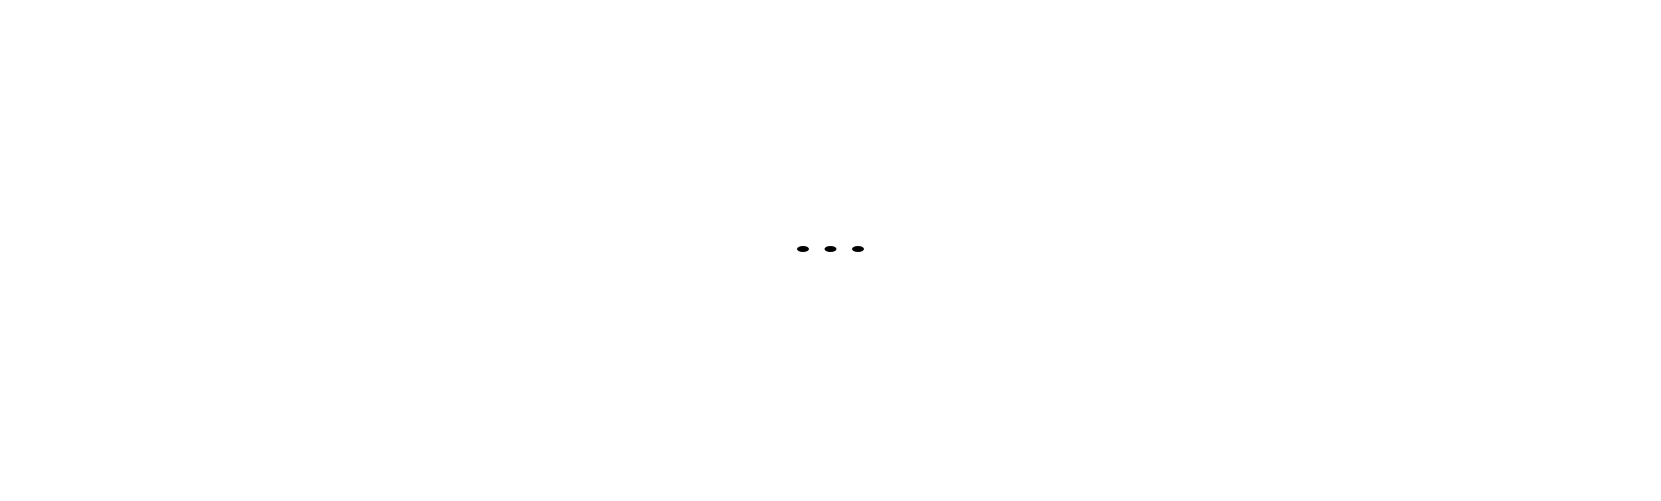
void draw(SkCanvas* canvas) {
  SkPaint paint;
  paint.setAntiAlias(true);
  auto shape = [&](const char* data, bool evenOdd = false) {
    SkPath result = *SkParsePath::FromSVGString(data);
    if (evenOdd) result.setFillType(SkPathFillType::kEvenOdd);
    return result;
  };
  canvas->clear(0xffffffff);
  paint.setColor(0xff000000);
  canvas->drawPath(shape("M803 252C811 252 811 246 803 246C795 246 795 252 803 252ZM830.5 252C838.5 252 838.5 246 830.5 246C822.5 246 822.5 252 830.5 252Z"), paint);
  canvas->drawPath(shape("M858 252C866 252 866 246 858 246C850 246 850 252 858 252Z"), paint);
}
